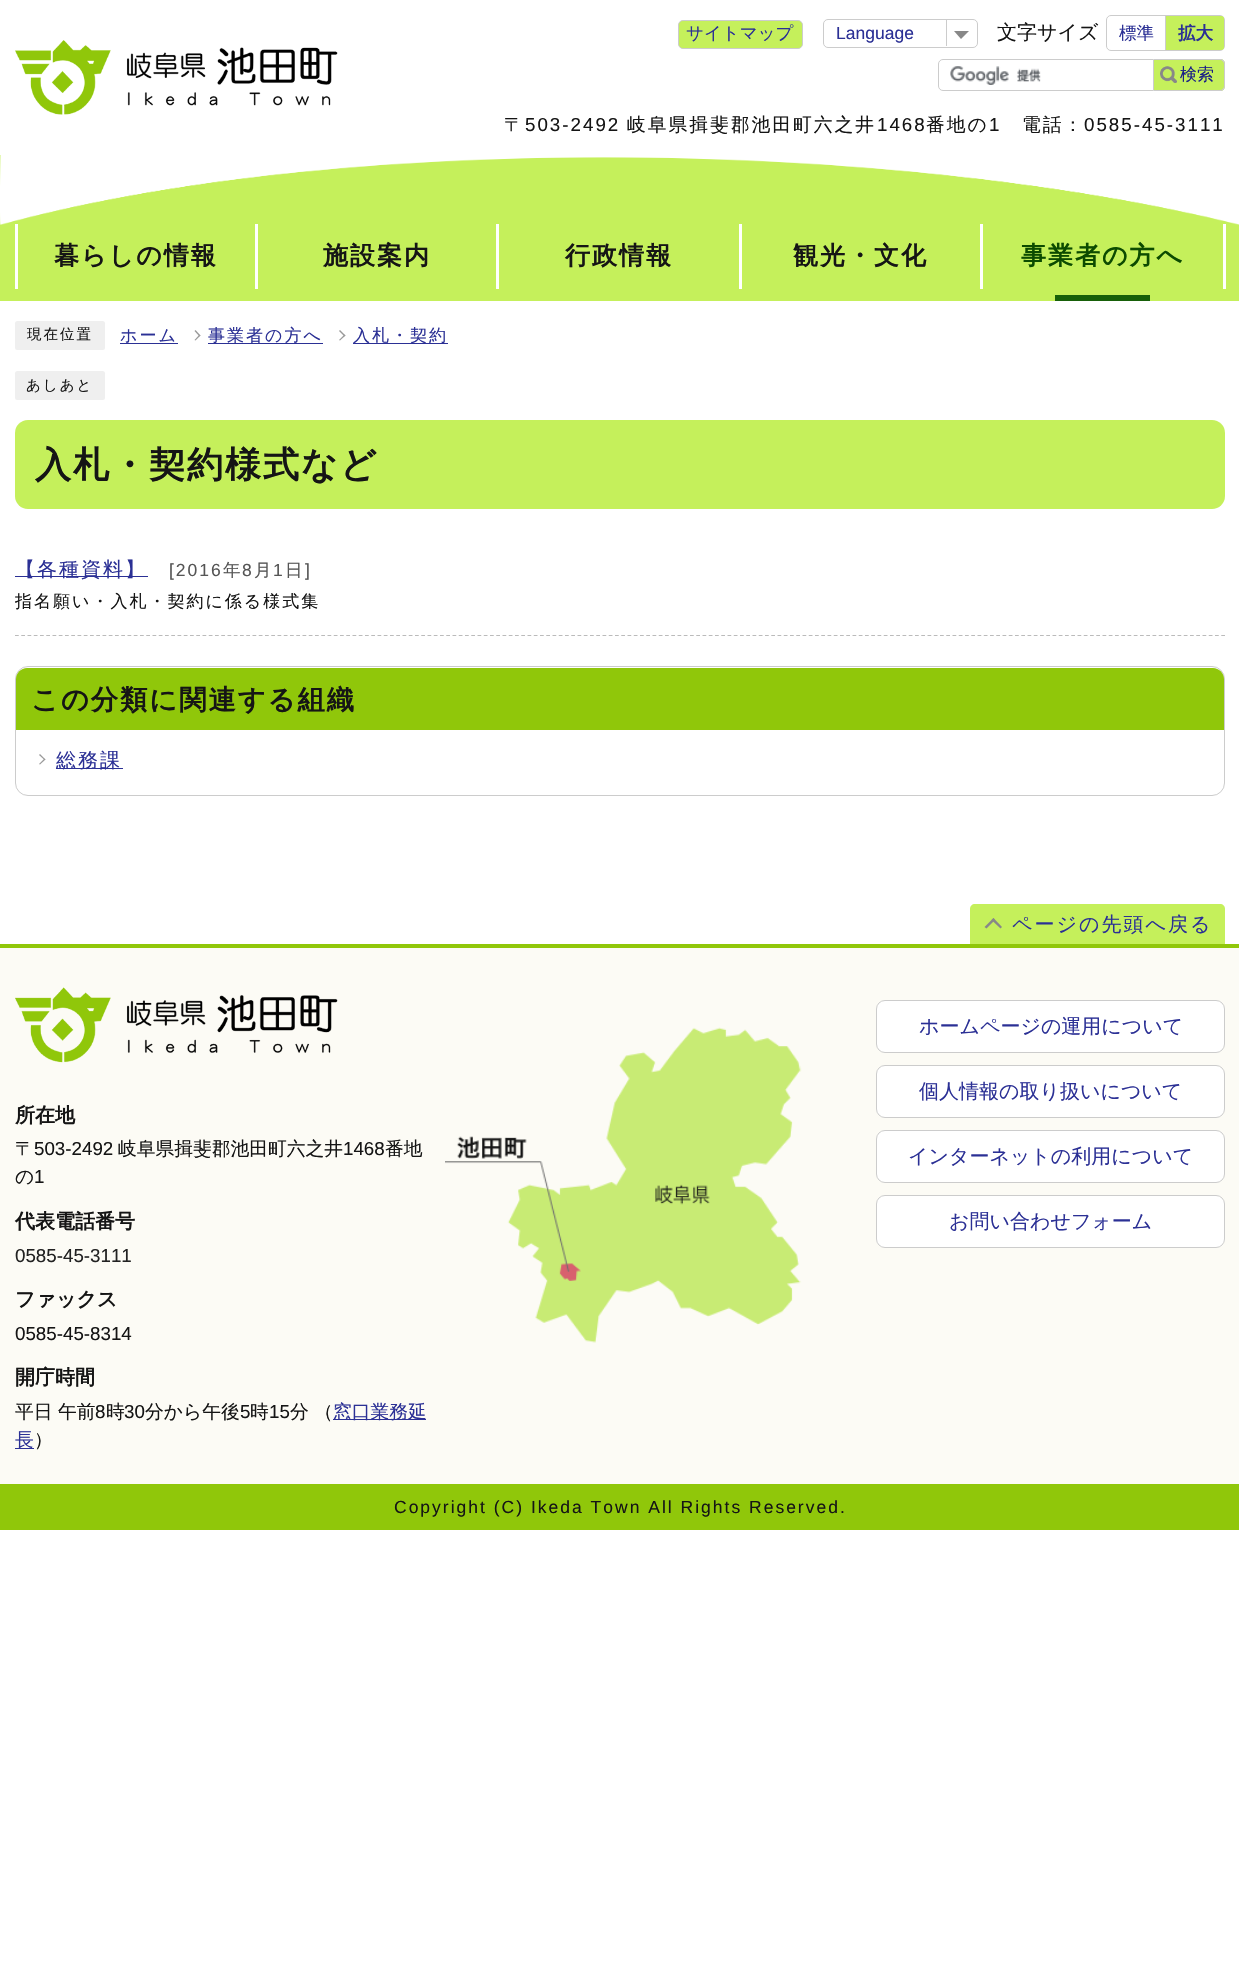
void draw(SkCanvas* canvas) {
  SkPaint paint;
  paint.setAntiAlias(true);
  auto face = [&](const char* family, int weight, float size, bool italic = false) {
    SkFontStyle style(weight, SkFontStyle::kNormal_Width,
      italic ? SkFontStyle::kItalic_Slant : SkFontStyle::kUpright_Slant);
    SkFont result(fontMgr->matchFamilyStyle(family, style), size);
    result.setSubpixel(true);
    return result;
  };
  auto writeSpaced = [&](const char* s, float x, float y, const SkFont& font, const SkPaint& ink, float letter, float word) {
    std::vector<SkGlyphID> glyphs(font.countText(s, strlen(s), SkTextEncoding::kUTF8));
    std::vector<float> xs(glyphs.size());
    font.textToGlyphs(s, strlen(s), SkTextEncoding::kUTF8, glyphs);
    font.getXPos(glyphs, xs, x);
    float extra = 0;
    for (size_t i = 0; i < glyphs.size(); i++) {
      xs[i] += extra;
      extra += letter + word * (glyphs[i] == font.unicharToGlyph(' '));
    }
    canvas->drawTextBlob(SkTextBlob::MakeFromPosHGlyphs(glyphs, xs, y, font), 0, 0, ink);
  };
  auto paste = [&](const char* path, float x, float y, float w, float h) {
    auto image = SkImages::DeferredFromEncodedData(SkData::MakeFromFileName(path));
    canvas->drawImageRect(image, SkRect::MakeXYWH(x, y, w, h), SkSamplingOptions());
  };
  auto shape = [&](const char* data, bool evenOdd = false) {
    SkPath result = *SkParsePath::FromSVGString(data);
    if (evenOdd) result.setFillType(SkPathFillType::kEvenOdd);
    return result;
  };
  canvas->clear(0xffffffff);
  paste("img/1.png", 15, 40, 323, 75);
  paint.setColor(0xffc5f05b);
  canvas->drawRoundRect(SkRect::MakeXYWH(678.5f, 20.5f, 124, 28), 4.5f, 4.5f, paint);
  paint.setStroke(true);
  paint.setStrokeWidth(1);
  paint.setColor(0xffcccccc);
  canvas->drawRoundRect(SkRect::MakeXYWH(678.5f, 20.5f, 124, 28), 4.5f, 4.5f, paint);
  canvas->drawRoundRect(SkRect::MakeXYWH(823.5f, 19.5f, 154, 28), 4.5f, 4.5f, paint);
  paint.setStroke(false);
  canvas->drawRect(SkRect::MakeXYWH(946, 20, 1, 26), paint);
  paint.setColor(0xff888888);
  canvas->drawPath(shape("M954 31H969L961 39Z"), paint);
  paint.setStroke(true);
  paint.setColor(0xffcccccc);
  canvas->drawRoundRect(SkRect::MakeXYWH(1106.5f, 15.5f, 118, 35), 4.5f, 4.5f, paint);
  paint.setStroke(false);
  canvas->drawRect(SkRect::MakeXYWH(1165, 16, 1, 34), paint);
  paint.setColor(0xffc5f05b);
  canvas->drawPath(shape("M1166 16H1221.5C1223 16 1224 17 1224 18.5V47.5C1224 49 1223 50 1221.5 50H1166Z"), paint);
  paste("img/2.png", 950, 66, 91, 19);
  paint.setStroke(true);
  paint.setColor(0xffcccccc);
  canvas->drawPath(shape("M943 59.5H1153.5V90.5H943C940.5 90.5 938.5 88.5 938.5 86V64C938.5 61.5 940.5 59.5 943 59.5Z"), paint);
  paint.setStroke(false);
  paint.setColor(0xffc5f05b);
  canvas->drawPath(shape("M1154 59H1220C1223 59 1225 61 1225 64V86C1225 89 1223 91 1220 91H1154Z"), paint);
  paste("img/3.png", 1160, 66, 17, 17);
  paint.setColor(0xffcccccc);
  canvas->drawPath(shape("M1154 59H1220C1223 59 1225 61 1225 64V86C1225 89 1223 91 1220 91H1154ZM1154 60H1220C1222 60 1224 62 1224 64V86C1224 88 1222 90 1220 90H1154Z", true), paint);
  paint.setColor(0xffc5f05b);
  canvas->drawRect(SkRect::MakeXYWH(0, 155, 1239, 146), paint);
  paste("img/4.png", 0, 155, 1239, 70);
  {
    const struct { float x, y, w, h; SkColor color; } items[] = {
      {255, 224, 3, 65, 0xffffffff},
      {15, 224, 3, 65, 0xffffffff},
      {496, 224, 3, 65, 0xffffffff},
      {739, 224, 3, 65, 0xffffffff},
      {980, 224, 3, 65, 0xffffffff},
      {1223, 224, 3, 65, 0xffffffff},
      {1055, 295, 95, 6, 0xff176009},
    };
    for (auto [x, y, w, h, color] : items) {
      paint.setColor(color);
      canvas->drawRect(SkRect::MakeXYWH(x, y, w, h), paint);
    }
  }
  paint.setColor(0xffefefef);
  canvas->drawRoundRect(SkRect::MakeXYWH(15, 321, 90, 29), 2.5f, 2.5f, paint);
  paint.setColor(0xff2b3095);
  canvas->drawRect(SkRect::MakeXYWH(120, 343, 58, 1), paint);
  paint.setColor(0xff999999);
  canvas->drawPath(shape("M194.5 331L195.5 330L200.5 335.5L199.5 336.5Z"), paint);
  canvas->drawPath(shape("M194.5 340L199.5 334.5L200.5 335.5L195.5 340.5Z"), paint);
  paint.setColor(0xff2b3095);
  canvas->drawRect(SkRect::MakeXYWH(208, 343, 115, 1), paint);
  paint.setColor(0xff999999);
  canvas->drawPath(shape("M339 331L340 330L345.5 335.5L344.5 336.5Z"), paint);
  canvas->drawPath(shape("M339 340L344.5 334.5L345.5 335.5L340 340.5Z"), paint);
  paint.setColor(0xff2b3095);
  canvas->drawRect(SkRect::MakeXYWH(353, 343, 95, 1), paint);
  paint.setColor(0xffefefef);
  canvas->drawRoundRect(SkRect::MakeXYWH(15, 371, 90, 29), 2.5f, 2.5f, paint);
  paint.setColor(0xffc5f05b);
  canvas->drawRoundRect(SkRect::MakeXYWH(15, 420, 1210, 89), 13, 13, paint);
  canvas->save();
  canvas->clipRect(SkRect::MakeXYWH(15, 524, 1210, 112));
  paint.setStroke(true);
  paint.setStrokeWidth(1.2f);
  paint.setColor(0xffbbbbbb);
  paint.setPathEffect(SkDashPathEffect::Make({{3.75f, 2.5f}}, 0));
  canvas->drawPath(shape("M15 635.5H1225"), paint);
  paint.setPathEffect(nullptr);
  canvas->restore();
  paint.setStroke(false);
  paint.setColor(0xff2b3095);
  canvas->drawRect(SkRect::MakeXYWH(15, 576, 133, 1), paint);
  paint.setStroke(true);
  paint.setStrokeWidth(1);
  paint.setColor(0xffcccccc);
  canvas->drawRoundRect(SkRect::MakeXYWH(15.5f, 666.5f, 1209, 129), 12.5f, 12.5f, paint);
  paint.setStroke(false);
  paint.setColor(0xff90c70a);
  canvas->drawPath(shape("M27 668H1213C1219 668 1224 673 1224 679V730H16V679C16 673 21 668 27 668Z"), paint);
  paint.setColor(0xff999999);
  canvas->drawPath(shape("M39 755L40 754L45.5 759.5L44.5 760Z"), paint);
  canvas->drawPath(shape("M39 764L44.5 758.5L45.5 759.5L40 764.5Z"), paint);
  paint.setColor(0xff2b3095);
  canvas->drawRect(SkRect::MakeXYWH(56, 768, 67, 1), paint);
  paint.setColor(0xffc5f05b);
  canvas->drawPath(shape("M975 904H1220C1223 904 1225 906 1225 909V944H970V909C970 906 972 904 975 904Z"), paint);
  paint.setColor(0xff888888);
  canvas->drawPath(shape("M984.5 927L993.5 918L995 920L986.5 928.5Z"), paint);
  canvas->drawPath(shape("M991.5 920L993.5 918L1002 927L1000.5 928.5Z"), paint);
  paint.setColor(0xfffcfbf5);
  canvas->drawRect(SkRect::MakeXYWH(0, 948, 1239, 536), paint);
  paint.setColor(0xff90c70a);
  canvas->drawRect(SkRect::MakeXYWH(0, 944, 1239, 4), paint);
  paste("img/5.png", 15, 987, 323, 76);
  paint.setColor(0xff2b3095);
  canvas->drawRect(SkRect::MakeXYWH(333, 1419, 93, 1), paint);
  canvas->drawRect(SkRect::MakeXYWH(15, 1448, 19, 1), paint);
  paste("img/6.png", 445, 1027, 357, 316);
  paint.setColor(0xffffffff);
  canvas->drawRoundRect(SkRect::MakeXYWH(876.5f, 1000.5f, 348, 52), 8.5f, 8.5f, paint);
  paint.setStroke(true);
  paint.setColor(0xffcccccc);
  canvas->drawRoundRect(SkRect::MakeXYWH(876.5f, 1000.5f, 348, 52), 8.5f, 8.5f, paint);
  paint.setStroke(false);
  paint.setColor(0xffffffff);
  canvas->drawRoundRect(SkRect::MakeXYWH(876.5f, 1065.5f, 348, 52), 8.5f, 8.5f, paint);
  paint.setStroke(true);
  paint.setColor(0xffcccccc);
  canvas->drawRoundRect(SkRect::MakeXYWH(876.5f, 1065.5f, 348, 52), 8.5f, 8.5f, paint);
  paint.setStroke(false);
  paint.setColor(0xffffffff);
  canvas->drawRoundRect(SkRect::MakeXYWH(876.5f, 1130.5f, 348, 52), 8.5f, 8.5f, paint);
  paint.setStroke(true);
  paint.setColor(0xffcccccc);
  canvas->drawRoundRect(SkRect::MakeXYWH(876.5f, 1130.5f, 348, 52), 8.5f, 8.5f, paint);
  paint.setStroke(false);
  paint.setColor(0xffffffff);
  canvas->drawRoundRect(SkRect::MakeXYWH(876.5f, 1195.5f, 348, 52), 8.5f, 8.5f, paint);
  paint.setStroke(true);
  paint.setColor(0xffcccccc);
  canvas->drawRoundRect(SkRect::MakeXYWH(876.5f, 1195.5f, 348, 52), 8.5f, 8.5f, paint);
  paint.setStroke(false);
  paint.setColor(0xff90c70a);
  canvas->drawRect(SkRect::MakeXYWH(0, 1484, 1239, 46), paint);
  auto f0 = face("WenQuanYi Zen Hei", 500, 17.5f);
  paint.setColor(0xff2b3095);
  canvas->drawString("サイトマップ", 686, 39, f0, paint);
  auto f1 = face("Liberation Sans", 400, 17.5f);
  canvas->drawString("Language", 836, 39, f1, paint);
  auto f2 = face("WenQuanYi Zen Hei", 500, 20);
  paint.setColor(0xff151515);
  canvas->drawString("文字サイズ", 997, 39, f2, paint);
  paint.setColor(0xff2b3095);
  canvas->drawString("標準", 1119, 39, f0, paint);
  auto f3 = face("WenQuanYi Zen Hei", 700, 17.5f);
  canvas->drawString("拡大", 1178, 39, f3, paint);
  auto f4 = face("WenQuanYi Zen Hei", 500, 17);
  paint.setColor(0xff1a1f86);
  canvas->drawString("検索", 1180, 80, f4, paint);
  auto f5 = face("WenQuanYi Zen Hei", 500, 18.75f);
  paint.setColor(0xff151515);
  writeSpaced("〒", 504, 131, f5, paint, 2, 0);
  auto f6 = face("Liberation Sans", 400, 18.75f);
  writeSpaced("503-2492", 525, 131, f6, paint, 2, 0);
  writeSpaced("岐阜県揖斐郡池田町六之井", 627, 131, f5, paint, 2, 0);
  writeSpaced("1468", 877, 131, f6, paint, 2, 0);
  writeSpaced("番地の", 926, 131, f5, paint, 2, 0);
  writeSpaced("1", 989, 131, f6, paint, 2, 0);
  writeSpaced("電話：", 1022, 131, f5, paint, 2, 0);
  writeSpaced("0585-45-3111", 1084, 131, f6, paint, 2, 0);
  auto f7 = face("WenQuanYi Zen Hei", 700, 25);
  {
    const struct { const char* s; float x, y; } items[] = {
      {"暮らしの情報", 54, 264},
      {"施設案内", 323, 264},
      {"行政情報", 565, 264},
      {"観光・文化", 793, 264},
    };
    for (auto [s, x, y] : items) {
      writeSpaced(s, x, y, f7, paint, 2, 0);
    }
  }
  paint.setColor(0xff0c4b00);
  writeSpaced("事業者の方へ", 1021, 264, f7, paint, 2, 0);
  auto f8 = face("WenQuanYi Zen Hei", 500, 14.5f);
  paint.setColor(0xff151515);
  writeSpaced("現在位置", 27, 339, f8, paint, 2, 0);
  paint.setColor(0xff2b3095);
  {
    const struct { const char* s; float x, y; } items[] = {
      {"ホーム", 120, 341},
      {"事業者の方へ", 208, 341},
      {"入札・契約", 353, 341},
    };
    for (auto [s, x, y] : items) {
      writeSpaced(s, x, y, f4, paint, 2, 0);
    }
  }
  paint.setColor(0xff151515);
  writeSpaced("あしあと", 26, 390, f8, paint, 2, 0);
  auto f9 = face("WenQuanYi Zen Hei", 700, 36);
  writeSpaced("入札・契約様式など", 35, 477, f9, paint, 2, 0);
  paint.setColor(0xff2b3095);
  writeSpaced("【各種資料】", 15, 576, f2, paint, 2, 0);
  paint.setColor(0xff555555);
  writeSpaced("[2016", 169, 576, f1, paint, 2, 0);
  writeSpaced("年", 223, 576, f0, paint, 2, 0);
  writeSpaced("8", 242, 576, f1, paint, 2, 0);
  writeSpaced("月", 254, 576, f0, paint, 2, 0);
  writeSpaced("1", 273, 576, f1, paint, 2, 0);
  writeSpaced("日", 285, 576, f0, paint, 2, 0);
  writeSpaced("]", 305, 576, f1, paint, 2, 0);
  paint.setColor(0xff151515);
  writeSpaced("指名願い・入札・契約に係る様式集", 15, 607, f4, paint, 2, 0);
  auto f10 = face("WenQuanYi Zen Hei", 700, 27.25f);
  writeSpaced("この分類に関連する組織", 31, 709, f10, paint, 2, 0);
  paint.setColor(0xff2b3095);
  writeSpaced("総務課", 56, 767, f2, paint, 2, 0);
  writeSpaced("ページの先頭へ戻る", 1012, 931, f2, paint, 2, 0);
  auto f11 = face("WenQuanYi Zen Hei", 700, 20);
  paint.setColor(0xff151515);
  canvas->drawString("所在地", 15, 1122, f11, paint);
  canvas->drawString("〒", 15, 1155, f5, paint);
  canvas->drawString("503-2492", 34, 1155, f6, paint);
  canvas->drawString("岐阜県揖斐郡池田町六之井", 118, 1155, f5, paint);
  canvas->drawString("1468", 343, 1155, f6, paint);
  canvas->drawString("番地", 385, 1155, f5, paint);
  canvas->drawString("の", 15, 1183, f5, paint);
  canvas->drawString("1", 34, 1183, f6, paint);
  canvas->drawString("代表電話番号", 15, 1228, f11, paint);
  paint.setColor(0xff222222);
  canvas->drawString("0585-45-3111", 15, 1262, f6, paint);
  paint.setColor(0xff151515);
  canvas->drawString("ファックス", 15, 1306, f11, paint);
  canvas->drawString("0585-45-8314", 15, 1340, f6, paint);
  canvas->drawString("開庁時間", 15, 1384, f11, paint);
  canvas->drawString("平日 午前", 15, 1418, f5, paint);
  canvas->drawString("8", 95, 1418, f6, paint);
  canvas->drawString("時", 106, 1418, f5, paint);
  canvas->drawString("30", 124, 1418, f6, paint);
  canvas->drawString("分から午後", 145, 1418, f5, paint);
  canvas->drawString("5", 240, 1418, f6, paint);
  canvas->drawString("時", 250, 1418, f5, paint);
  canvas->drawString("15", 269, 1418, f6, paint);
  canvas->drawString("分 （", 290, 1418, f5, paint);
  paint.setColor(0xff2b3095);
  canvas->drawString("窓口業務延", 333, 1418, f5, paint);
  canvas->drawString("長", 15, 1446, f5, paint);
  paint.setColor(0xff151515);
  canvas->drawString("）", 34, 1446, f5, paint);
  paint.setColor(0xff2b3095);
  {
    const struct { const char* s; float x, y; } items[] = {
      {"ホームページの運用について", 919, 1033},
      {"個人情報の取り扱いについて", 919, 1098},
      {"インターネットの利用について", 908, 1163},
      {"お問い合わせフォーム", 949, 1228},
    };
    for (auto [s, x, y] : items) {
      canvas->drawString(s, x, y, f2, paint);
    }
  }
  paint.setColor(0xff151515);
  writeSpaced("Copyright (C) Ikeda Town All Rights Reserved.", 394, 1513, f1, paint, 2, 0);
}
